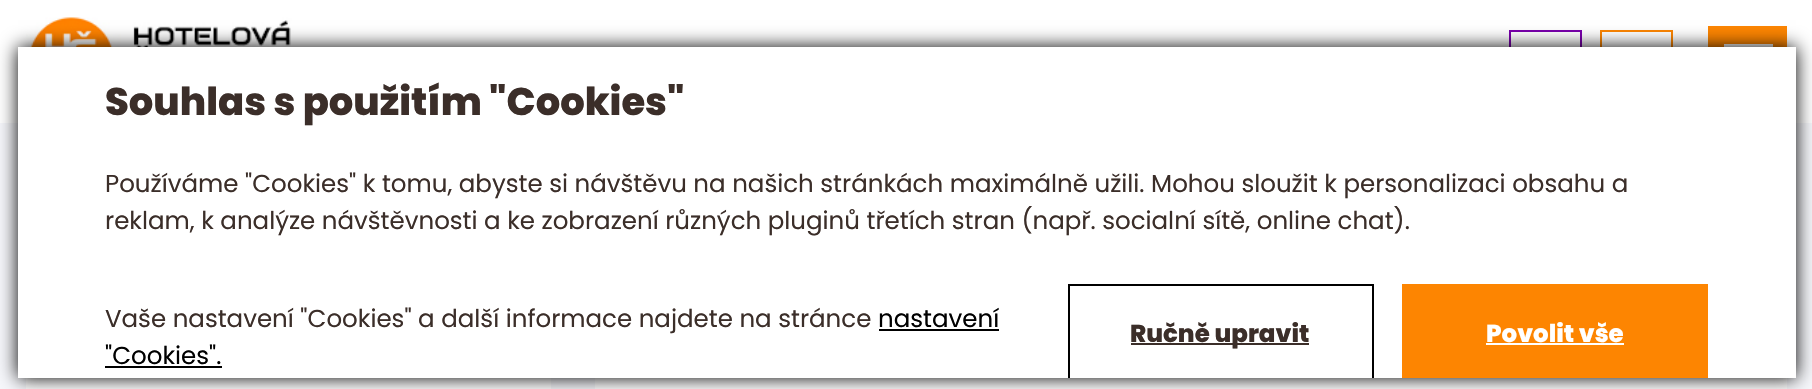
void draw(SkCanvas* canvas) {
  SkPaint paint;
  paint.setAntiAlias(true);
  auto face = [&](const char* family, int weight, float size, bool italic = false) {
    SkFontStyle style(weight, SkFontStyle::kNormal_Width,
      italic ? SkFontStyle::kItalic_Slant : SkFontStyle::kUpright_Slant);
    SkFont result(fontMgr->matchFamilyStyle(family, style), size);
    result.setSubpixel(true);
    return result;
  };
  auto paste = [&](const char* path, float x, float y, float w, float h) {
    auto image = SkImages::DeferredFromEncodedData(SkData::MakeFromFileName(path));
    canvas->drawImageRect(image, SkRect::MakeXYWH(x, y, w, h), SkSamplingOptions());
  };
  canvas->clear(0xfff6f7fb);
  paint.setColor(0xffffffff);
  canvas->drawRect(SkRect::MakeXYWH(0, 0, 1812, 123), paint);
  paste("img/1.png", 26, 17, 269, 30);
  paint.setStroke(true);
  paint.setStrokeWidth(2);
  paint.setColor(0xff7900ac);
  canvas->drawRect(SkRect::MakeXYWH(1510, 31, 71, 61), paint);
  paint.setColor(0xfffd8501);
  canvas->drawRect(SkRect::MakeXYWH(1601, 31, 71, 61), paint);
  paint.setStroke(false);
  {
    const struct { float x, y, w, h; SkColor color; } items[] = {
      {1708, 26, 79, 21, 0xfffd8501},
      {1724, 44, 49, 3, 0xffffffff},
      {26, 378, 525, 11, 0xffffffff},
      {595, 378, 1192, 11, 0xffffffff},
    };
    for (auto [x, y, w, h, color] : items) {
      paint.setColor(color);
      canvas->drawRect(SkRect::MakeXYWH(x, y, w, h), paint);
    }
  }
  paint.setColor(0xff000000);
  paint.setMaskFilter(SkMaskFilter::MakeBlur(kNormal_SkBlurStyle, 9));
  canvas->drawRect(SkRect::MakeXYWH(18, 47, 1778, 331), paint);
  paint.setMaskFilter(nullptr);
  {
    const struct { float x, y, w, h; SkColor color; } items[] = {
      {18, 47, 1778, 331, 0xffffffff},
      {879, 329, 120, 2, 0xff000000},
      {105, 366, 117, 2, 0xff000000},
    };
    for (auto [x, y, w, h, color] : items) {
      paint.setColor(color);
      canvas->drawRect(SkRect::MakeXYWH(x, y, w, h), paint);
    }
  }
  canvas->save();
  canvas->clipRect(SkRect::MakeXYWH(18, 47, 1778, 331));
  paint.setStroke(true);
  canvas->drawRect(SkRect::MakeXYWH(1069, 285, 304, 96), paint);
  canvas->restore();
  paint.setStroke(false);
  {
    const struct { float x, y, w, h; SkColor color; } items[] = {
      {1131, 343, 178, 2, 0xff3b2e29},
      {1402, 284, 306, 94, 0xfffd8501},
      {1486, 343, 138, 2, 0xffffffff},
    };
    for (auto [x, y, w, h, color] : items) {
      paint.setColor(color);
      canvas->drawRect(SkRect::MakeXYWH(x, y, w, h), paint);
    }
  }
  auto f0 = face("Poppins", 800, 38.5f);
  paint.setColor(0xff3b2e29);
  canvas->drawString("Souhlas s použitím \"Cookies\"", 105, 115, f0, paint);
  auto f1 = face("Poppins", 400, 24.5f);
  {
    const struct { const char* s; float x, y; } items[] = {
      {"Používáme \"Cookies\" k tomu, abyste si návštěvu na našich stránkách maximálně užili. Mohou sloužit k personalizaci obsahu a", 105, 192},
      {"reklam, k analýze návštěvnosti a ke zobrazení různých pluginů třetích stran (např. socialní sítě, online chat).", 105, 229},
      {"Vaše nastavení \"Cookies\" a další informace najdete na stránce", 105, 327},
    };
    for (auto [s, x, y] : items) {
      canvas->drawString(s, x, y, f1, paint);
    }
  }
  paint.setColor(0xff000000);
  canvas->drawString("nastavení", 878, 327, f1, paint);
  canvas->drawString("\"Cookies\".", 105, 364, f1, paint);
  auto f2 = face("Poppins", 800, 24.5f);
  paint.setColor(0xff3b2e29);
  canvas->drawString("Ručně upravit", 1130, 342, f2, paint);
  paint.setColor(0xffffffff);
  canvas->drawString("Povolit vše", 1486, 342, f2, paint);
}
